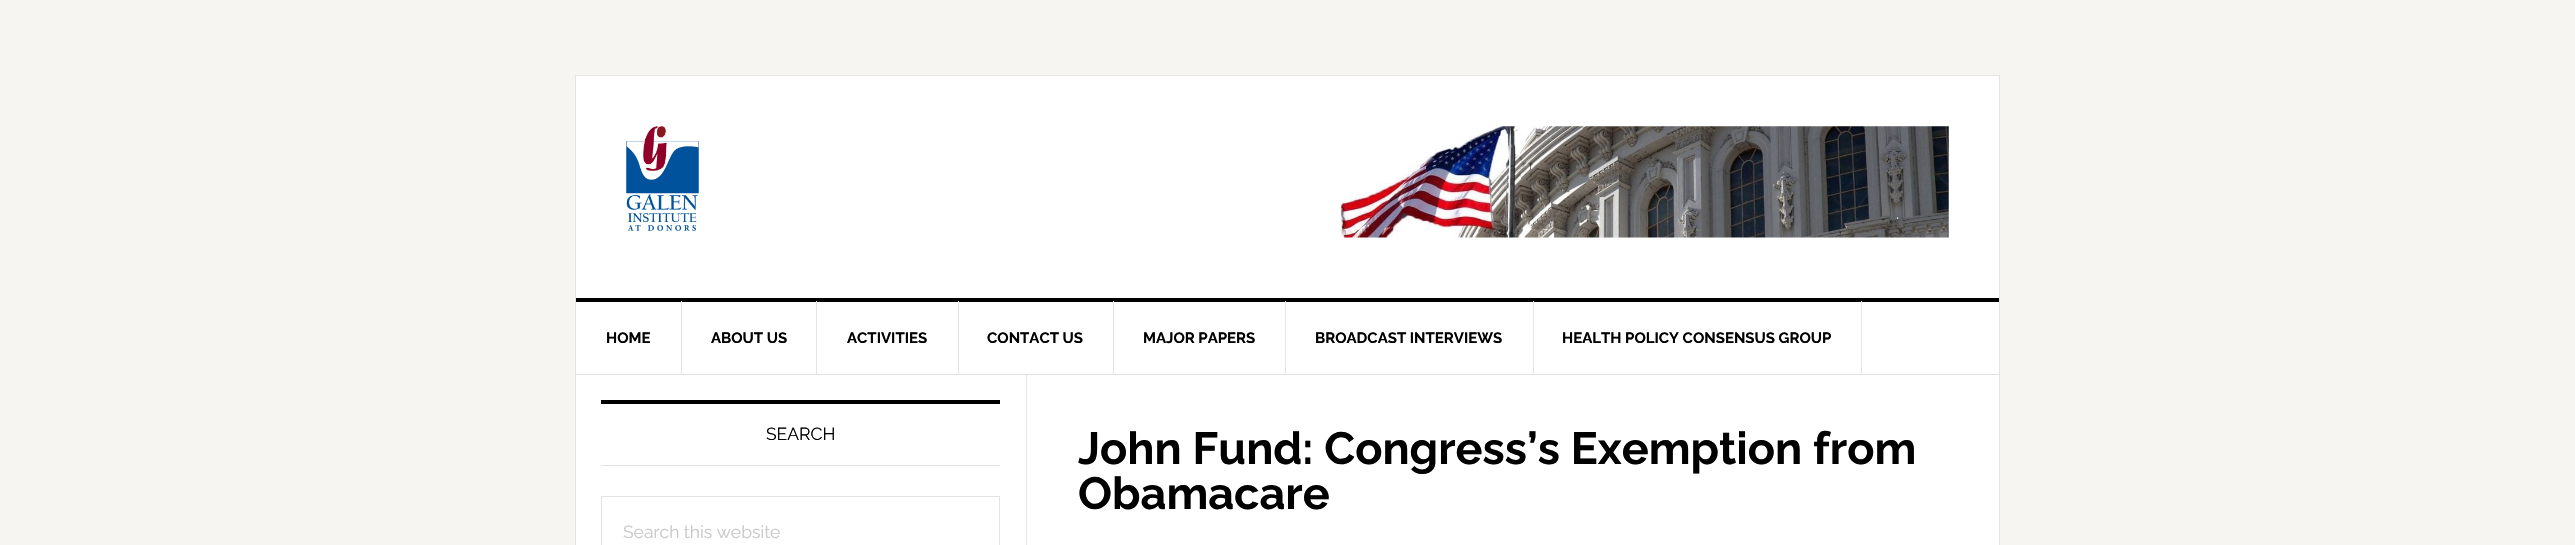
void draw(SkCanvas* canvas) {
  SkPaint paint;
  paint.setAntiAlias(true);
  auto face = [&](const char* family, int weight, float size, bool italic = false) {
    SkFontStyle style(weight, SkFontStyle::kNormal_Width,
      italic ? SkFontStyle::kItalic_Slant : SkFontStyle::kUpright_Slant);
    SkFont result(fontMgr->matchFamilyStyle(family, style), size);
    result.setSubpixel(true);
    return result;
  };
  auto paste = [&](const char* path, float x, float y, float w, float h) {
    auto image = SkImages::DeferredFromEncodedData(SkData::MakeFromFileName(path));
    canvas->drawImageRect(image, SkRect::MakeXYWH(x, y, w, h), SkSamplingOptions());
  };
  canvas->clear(0xfff6f5f2);
  paint.setColor(0xffffffff);
  canvas->drawRect(SkRect::MakeXYWH(575.5f, 75.5f, 1424, 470), paint);
  paint.setStroke(true);
  paint.setStrokeWidth(1);
  paint.setColor(0xffe3e3e3);
  canvas->drawRect(SkRect::MakeXYWH(575.5f, 75.5f, 1424, 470), paint);
  paint.setStroke(false);
  paint.setColor(0xff000000);
  canvas->drawRect(SkRect::MakeXYWH(576, 298, 1423, 4), paint);
  paste("img/1.png", 626, 126, 73, 105);
  paste("img/2.png", 1340, 126, 609, 112);
  {
    const struct { float x, y, w, h; SkColor color; } items[] = {
      {576, 374, 1423, 1, 0xffe3e3e3},
      {681, 301, 1, 73, 0xffe3e3e3},
      {816, 301, 1, 73, 0xffe3e3e3},
      {958, 301, 1, 73, 0xffe3e3e3},
      {1113, 301, 1, 73, 0xffe3e3e3},
      {1285, 301, 1, 73, 0xffe3e3e3},
      {1533, 301, 1, 73, 0xffe3e3e3},
      {1861, 301, 1, 73, 0xffe3e3e3},
      {601, 400, 399, 4, 0xff000000},
      {601, 465, 399, 1, 0xffe3e3e3},
    };
    for (auto [x, y, w, h, color] : items) {
      paint.setColor(color);
      canvas->drawRect(SkRect::MakeXYWH(x, y, w, h), paint);
    }
  }
  paint.setStroke(true);
  canvas->drawRect(SkRect::MakeXYWH(601.5f, 496.5f, 398, 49), paint);
  paint.setStroke(false);
  canvas->drawRect(SkRect::MakeXYWH(1026, 375, 1, 170), paint);
  auto f0 = face("Raleway", 700, 15);
  paint.setColor(0xff000000);
  {
    const struct { const char* s; float x, y; } items[] = {
      {"HOME", 606, 343},
      {"ABOUT US", 711, 343},
      {"ACTIVITIES", 847, 343},
      {"CONTACT US", 987, 343},
      {"MAJOR PAPERS", 1143, 343},
      {"BROADCAST INTERVIEWS", 1315, 343},
      {"HEALTH POLICY CONSENSUS GROUP", 1562, 343},
    };
    for (auto [s, x, y] : items) {
      canvas->drawString(s, x, y, f0, paint);
    }
  }
  auto f1 = face("Raleway", 400, 17.5f);
  canvas->drawString("SEARCH", 766, 440, f1, paint);
  paint.setColor(0xffc8c8c8);
  canvas->drawString("Search this website", 623, 538, f1, paint);
  auto f2 = face("Raleway", 700, 45);
  paint.setColor(0xff000000);
  canvas->drawString("John Fund: Congress’s Exemption from", 1078, 464, f2, paint);
  canvas->drawString("Obamacare", 1078, 509, f2, paint);
}
